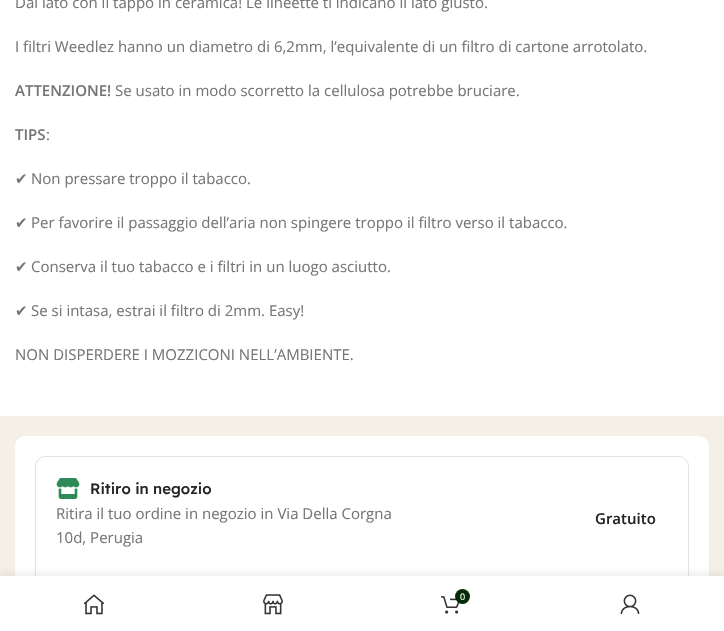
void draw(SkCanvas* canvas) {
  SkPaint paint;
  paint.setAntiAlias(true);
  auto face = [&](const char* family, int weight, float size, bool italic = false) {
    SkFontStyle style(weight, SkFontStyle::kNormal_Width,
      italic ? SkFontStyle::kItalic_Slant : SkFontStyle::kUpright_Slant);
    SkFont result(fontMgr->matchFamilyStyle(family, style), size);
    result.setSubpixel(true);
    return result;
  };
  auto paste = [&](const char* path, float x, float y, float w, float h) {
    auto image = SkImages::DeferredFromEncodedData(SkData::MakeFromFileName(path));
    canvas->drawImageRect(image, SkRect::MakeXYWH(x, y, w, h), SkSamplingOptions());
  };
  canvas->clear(0xfff5f0e6);
  paint.setColor(0xffffffff);
  canvas->drawRect(SkRect::MakeXYWH(0, 0, 724, 416), paint);
  canvas->drawRoundRect(SkRect::MakeXYWH(15, 436, 694, 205), 10, 10, paint);
  paint.setStroke(true);
  paint.setStrokeWidth(1);
  paint.setColor(0xffe3e3e3);
  canvas->drawRoundRect(SkRect::MakeXYWH(35.5f, 456.5f, 653, 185), 9.5f, 9.5f, paint);
  paste("img/1.png", 56, 478, 24, 21);
  paint.setStroke(false);
  paint.setColor(0x1f000000);
  paint.setMaskFilter(SkMaskFilter::MakeBlur(kNormal_SkBlurStyle, 4.5f));
  canvas->drawRect(SkRect::MakeXYWH(0, 576, 724, 55), paint);
  paint.setMaskFilter(nullptr);
  paint.setColor(0xffffffff);
  canvas->drawRect(SkRect::MakeXYWH(0, 576, 724, 55), paint);
  paste("img/2.png", 84, 594, 20, 21);
  paste("img/3.png", 263, 594, 20, 21);
  paste("img/4.png", 441, 596, 19, 18);
  paint.setColor(0xff042c04);
  canvas->drawCircle(462.5f, 596.5f, 7.5f, paint);
  paste("img/5.png", 620, 594, 20, 20);
  auto f0 = face("Open Sans", 400, 15);
  paint.setColor(0xff767676);
  canvas->drawString("Dal lato con il tappo in ceramica! Le lineette ti indicano il lato giusto.", 15, 8, f0, paint);
  canvas->drawString("I filtri Weedlez hanno un diametro di 6,2mm, l’equivalente di un filtro di cartone arrotolato.", 15, 52, f0, paint);
  auto f1 = face("Open Sans", 600, 15);
  canvas->drawString("ATTENZIONE!", 15, 96, f1, paint);
  canvas->drawString("Se usato in modo scorretto la cellulosa potrebbe bruciare.", 115, 96, f0, paint);
  canvas->drawString("TIPS", 15, 140, f1, paint);
  canvas->drawString(":", 46, 140, f0, paint);
  auto f2 = face("DejaVu Sans", 400, 15);
  canvas->drawString("✔", 15, 184, f2, paint);
  canvas->drawString("Non pressare troppo il tabacco.", 31, 184, f0, paint);
  canvas->drawString("✔", 15, 228, f2, paint);
  canvas->drawString("Per favorire il passaggio dell’aria non spingere troppo il filtro verso il tabacco.", 31, 228, f0, paint);
  canvas->drawString("✔", 15, 272, f2, paint);
  canvas->drawString("Conserva il tuo tabacco e i filtri in un luogo asciutto.", 31, 272, f0, paint);
  canvas->drawString("✔", 15, 316, f2, paint);
  canvas->drawString("Se si intasa, estrai il filtro di 2mm. Easy!", 31, 316, f0, paint);
  canvas->drawString("NON DISPERDERE I MOZZICONI NELL’AMBIENTE.", 15, 360, f0, paint);
  auto f3 = face("Lexend Deca", 500, 15);
  paint.setColor(0xff242424);
  canvas->drawString("Ritiro in negozio", 90, 494, f3, paint);
  paint.setColor(0xff767676);
  canvas->drawString("Ritira il tuo ordine in negozio in Via Della Corgna", 56, 519, f0, paint);
  canvas->drawString("10d, Perugia", 56, 543, f0, paint);
  paint.setColor(0xff242424);
  canvas->drawString("Gratuito", 595, 524, f1, paint);
  auto f4 = face("Open Sans", 400, 9);
  paint.setColor(0xffffffff);
  canvas->drawString("0", 460, 600, f4, paint);
}
